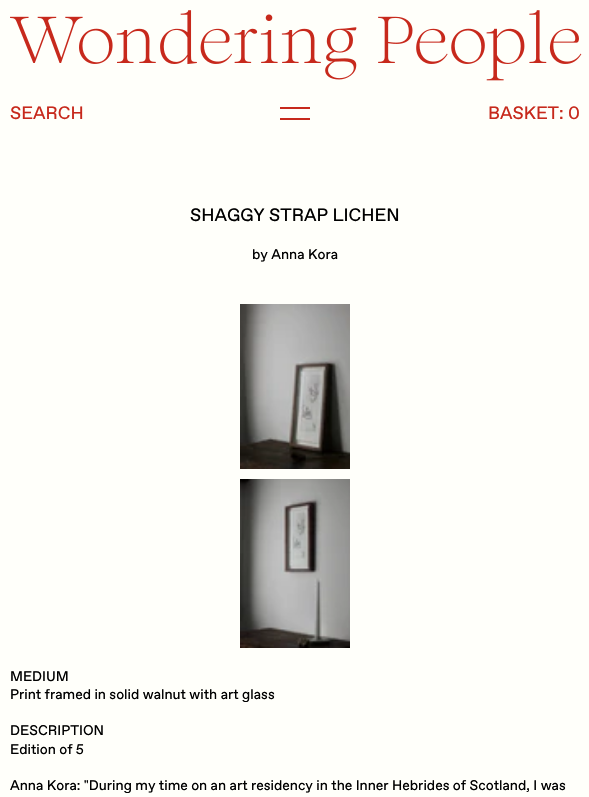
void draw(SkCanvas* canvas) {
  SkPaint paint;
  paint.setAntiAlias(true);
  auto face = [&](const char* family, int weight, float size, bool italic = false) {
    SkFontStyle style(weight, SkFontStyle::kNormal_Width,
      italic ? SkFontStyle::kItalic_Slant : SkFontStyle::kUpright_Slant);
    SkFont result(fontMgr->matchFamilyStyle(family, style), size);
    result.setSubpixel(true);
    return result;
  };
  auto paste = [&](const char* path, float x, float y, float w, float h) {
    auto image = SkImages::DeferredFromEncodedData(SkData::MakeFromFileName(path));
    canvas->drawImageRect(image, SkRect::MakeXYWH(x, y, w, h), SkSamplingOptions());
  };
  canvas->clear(0xfffffffa);
  paste("img/1.png", 10, 10, 572, 71);
  paint.setColor(0xffc7291c);
  canvas->drawRect(SkRect::MakeXYWH(280, 107, 30, 2), paint);
  canvas->drawRect(SkRect::MakeXYWH(280, 118, 30, 2), paint);
  paste("img/2.png", 240, 304, 110, 165);
  paste("img/3.png", 240, 479, 110, 169);
  auto f0 = face("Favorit", 400, 18);
  canvas->drawString("SEARCH", 10, 119, f0, paint);
  canvas->drawString("BASKET: 0", 488, 119, f0, paint);
  paint.setColor(0xff000000);
  canvas->drawString("SHAGGY STRAP LICHEN", 190, 221, f0, paint);
  auto f1 = face("Favorit", 400, 14);
  {
    const struct { const char* s; float x, y; } items[] = {
      {"by Anna Kora", 252, 259},
      {"MEDIUM", 10, 681},
      {"Print framed in solid walnut with art glass", 10, 699},
      {"DESCRIPTION", 10, 735},
      {"Edition of 5", 10, 754},
      {"Anna Kora: \"During my time on an art residency in the Inner Hebrides of Scotland, I was", 10, 790},
    };
    for (auto [s, x, y] : items) {
      canvas->drawString(s, x, y, f1, paint);
    }
  }
}
